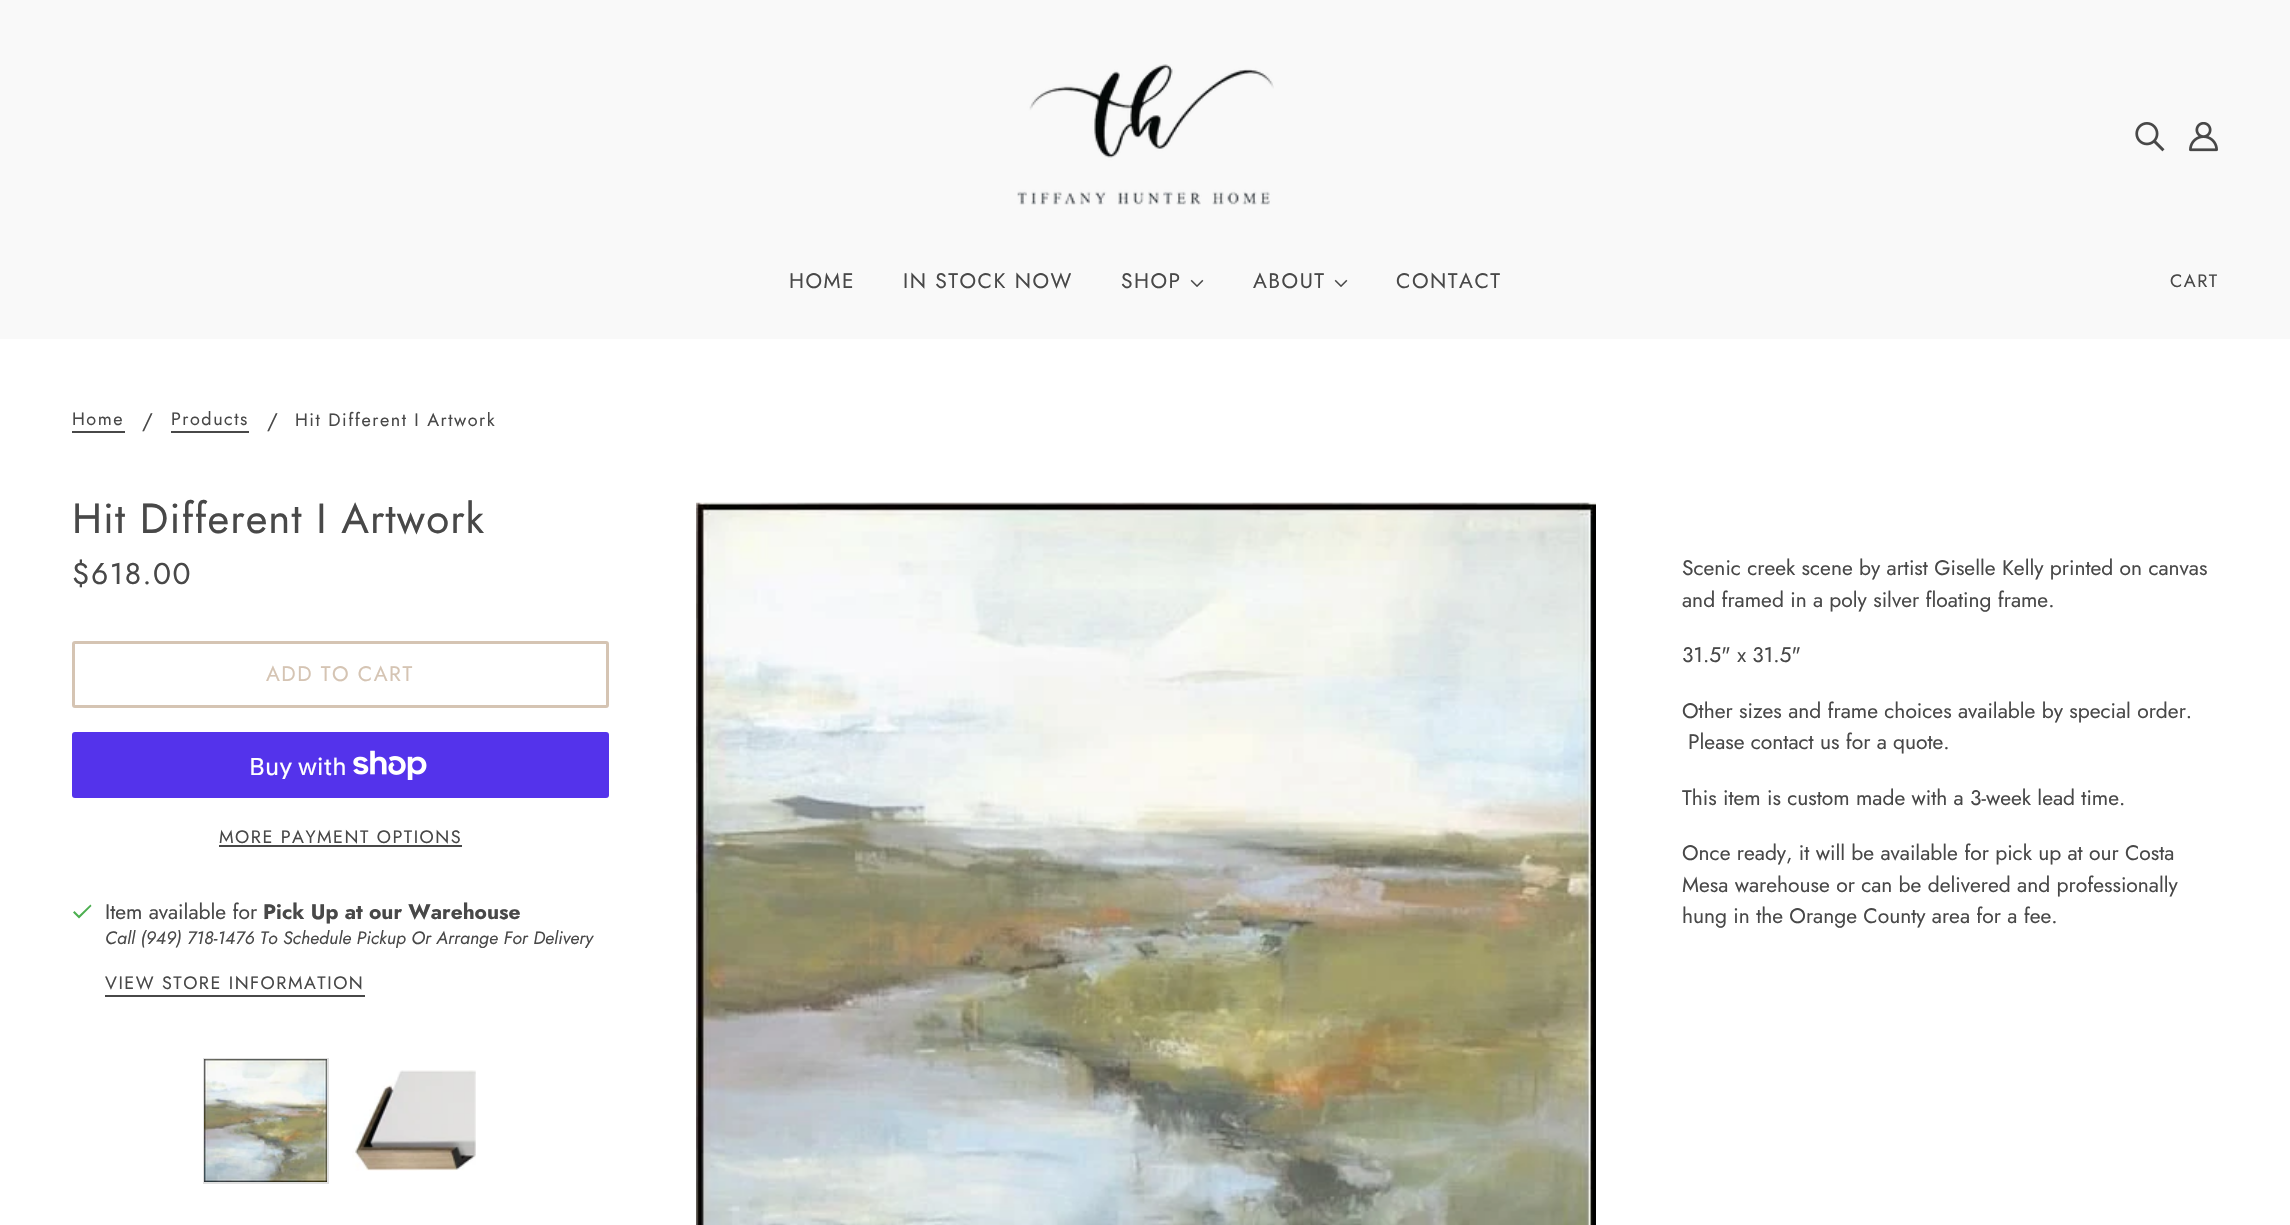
void draw(SkCanvas* canvas) {
  SkPaint paint;
  paint.setAntiAlias(true);
  auto face = [&](const char* family, int weight, float size, bool italic = false) {
    SkFontStyle style(weight, SkFontStyle::kNormal_Width,
      italic ? SkFontStyle::kItalic_Slant : SkFontStyle::kUpright_Slant);
    SkFont result(fontMgr->matchFamilyStyle(family, style), size);
    result.setSubpixel(true);
    return result;
  };
  auto writeSpaced = [&](const char* s, float x, float y, const SkFont& font, const SkPaint& ink, float letter, float word) {
    std::vector<SkGlyphID> glyphs(font.countText(s, strlen(s), SkTextEncoding::kUTF8));
    std::vector<float> xs(glyphs.size());
    font.textToGlyphs(s, strlen(s), SkTextEncoding::kUTF8, glyphs);
    font.getXPos(glyphs, xs, x);
    float extra = 0;
    for (size_t i = 0; i < glyphs.size(); i++) {
      xs[i] += extra;
      extra += letter + word * (glyphs[i] == font.unicharToGlyph(' '));
    }
    canvas->drawTextBlob(SkTextBlob::MakeFromPosHGlyphs(glyphs, xs, y, font), 0, 0, ink);
  };
  auto paste = [&](const char* path, float x, float y, float w, float h) {
    auto image = SkImages::DeferredFromEncodedData(SkData::MakeFromFileName(path));
    canvas->drawImageRect(image, SkRect::MakeXYWH(x, y, w, h), SkSamplingOptions());
  };
  auto shape = [&](const char* data, bool evenOdd = false) {
    SkPath result = *SkParsePath::FromSVGString(data);
    if (evenOdd) result.setFillType(SkPathFillType::kEvenOdd);
    return result;
  };
  canvas->clear(0xffffffff);
  paint.setColor(0xfff9f9f9);
  canvas->drawRect(SkRect::MakeXYWH(0, 0, 2290, 339), paint);
  paste("img/1.png", 1017, 64, 257, 141);
  paste("img/2.png", 2135, 122, 30, 30);
  paste("img/3.png", 2189, 122, 29, 30);
  paste("img/4.png", 1190, 279, 14, 8);
  paste("img/4.png", 1334, 279, 14, 8);
  paint.setColor(0xff484848);
  canvas->drawRect(SkRect::MakeXYWH(72, 431, 53, 2), paint);
  canvas->drawRect(SkRect::MakeXYWH(171, 431, 78, 2), paint);
  paste("img/5.png", 696, 502, 900, 723);
  paint.setStroke(true);
  paint.setStrokeWidth(3);
  paint.setColor(0xffd5c4b3);
  canvas->drawRoundRect(SkRect::MakeXYWH(73.5f, 642.5f, 534, 64), 1.5f, 1.5f, paint);
  paint.setStroke(false);
  paint.setColor(0xff5433eb);
  canvas->drawRoundRect(SkRect::MakeXYWH(72, 732, 537, 66), 3, 3, paint);
  paste("img/6.png", 353, 750, 74, 30);
  paint.setColor(0xff484848);
  canvas->drawRect(SkRect::MakeXYWH(219, 845, 243, 2), paint);
  paint.setColor(0xff4caf50);
  canvas->drawPath(shape("M79 915.5L74.5 911L73 912.5L79 918.5L91.5 906L90.5 904.5Z"), paint);
  paint.setColor(0xff484848);
  canvas->drawRect(SkRect::MakeXYWH(105, 995, 260, 2), paint);
  paint.setStroke(true);
  paint.setStrokeWidth(2);
  paint.setColor(0xffe0e0e0);
  canvas->drawRect(SkRect::MakeXYWH(204, 1059, 124, 124), paint);
  paste("img/7.png", 204, 1059, 123, 123);
  paste("img/8.png", 352, 1070, 124, 101);
  auto f0 = face("Jost", 400, 21);
  paint.setStroke(false);
  paint.setColor(0xff484848);
  {
    const struct { const char* s; float x, y; } items[] = {
      {"HOME", 789, 288},
      {"IN STOCK NOW", 903, 288},
      {"SHOP", 1121, 288},
      {"ABOUT", 1253, 288},
      {"CONTACT", 1396, 288},
    };
    for (auto [s, x, y] : items) {
      writeSpaced(s, x, y, f0, paint, 1.5f, 0);
    }
  }
  auto f1 = face("Jost", 400, 18);
  writeSpaced("CART", 2170, 287, f1, paint, 1.5f, 0);
  writeSpaced("Home", 72, 425, f1, paint, 1.5f, 0);
  canvas->drawString("/", 142, 428, f0, paint);
  writeSpaced("Products", 171, 425, f1, paint, 1.5f, 0);
  canvas->drawString("/", 267, 428, f0, paint);
  writeSpaced("Hit Different I Artwork", 295, 426, f1, paint, 1.5f, 0);
  auto f2 = face("Jost", 400, 42);
  writeSpaced("Hit Different I Artwork", 72, 533, f2, paint, 1.05f, 0);
  {
    const struct { const char* s; float x, y; } items[] = {
      {"Scenic creek scene by artist Giselle Kelly printed on canvas", 1682, 575},
      {"and framed in a poly silver floating frame.", 1682, 607},
      {"31.5\" x 31.5\"", 1682, 662},
      {"Other sizes and frame choices available by special order.", 1682, 718},
      {"Please contact us for a quote.", 1688, 749},
      {"This item is custom made with a 3-week lead time.", 1682, 805},
      {"Once ready, it will be available for pick up at our Costa", 1682, 860},
      {"Mesa warehouse or can be delivered and professionally", 1682, 892},
      {"hung in the Orange County area for a fee.", 1682, 923},
    };
    for (auto [s, x, y] : items) {
      canvas->drawString(s, x, y, f0, paint);
    }
  }
  auto f3 = face("Jost", 400, 30);
  writeSpaced("$618.00", 72, 584, f3, paint, 1.5f, 0);
  paint.setColor(0xffd5c4b3);
  writeSpaced("ADD TO CART", 266, 681, f0, paint, 1.5f, 0);
  auto f4 = face("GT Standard", 400, 24);
  paint.setColor(0xffffffff);
  canvas->drawString("Buy with", 249, 775, f4, paint);
  paint.setColor(0xff484848);
  writeSpaced("MORE PAYMENT OPTIONS", 219, 843, f1, paint, 1.5f, 0);
  canvas->drawString("Item available for", 105, 919, f0, paint);
  auto f5 = face("Jost", 700, 21);
  canvas->drawString("Pick Up at our Warehouse", 263, 919, f5, paint);
  auto f6 = face("Jost", 400, 18, true);
  canvas->drawString("Call (949) 718-1476 To Schedule Pickup Or Arrange For Delivery", 105, 944, f6, paint);
  writeSpaced("VIEW STORE INFORMATION", 105, 989, f1, paint, 1.5f, 0);
}
